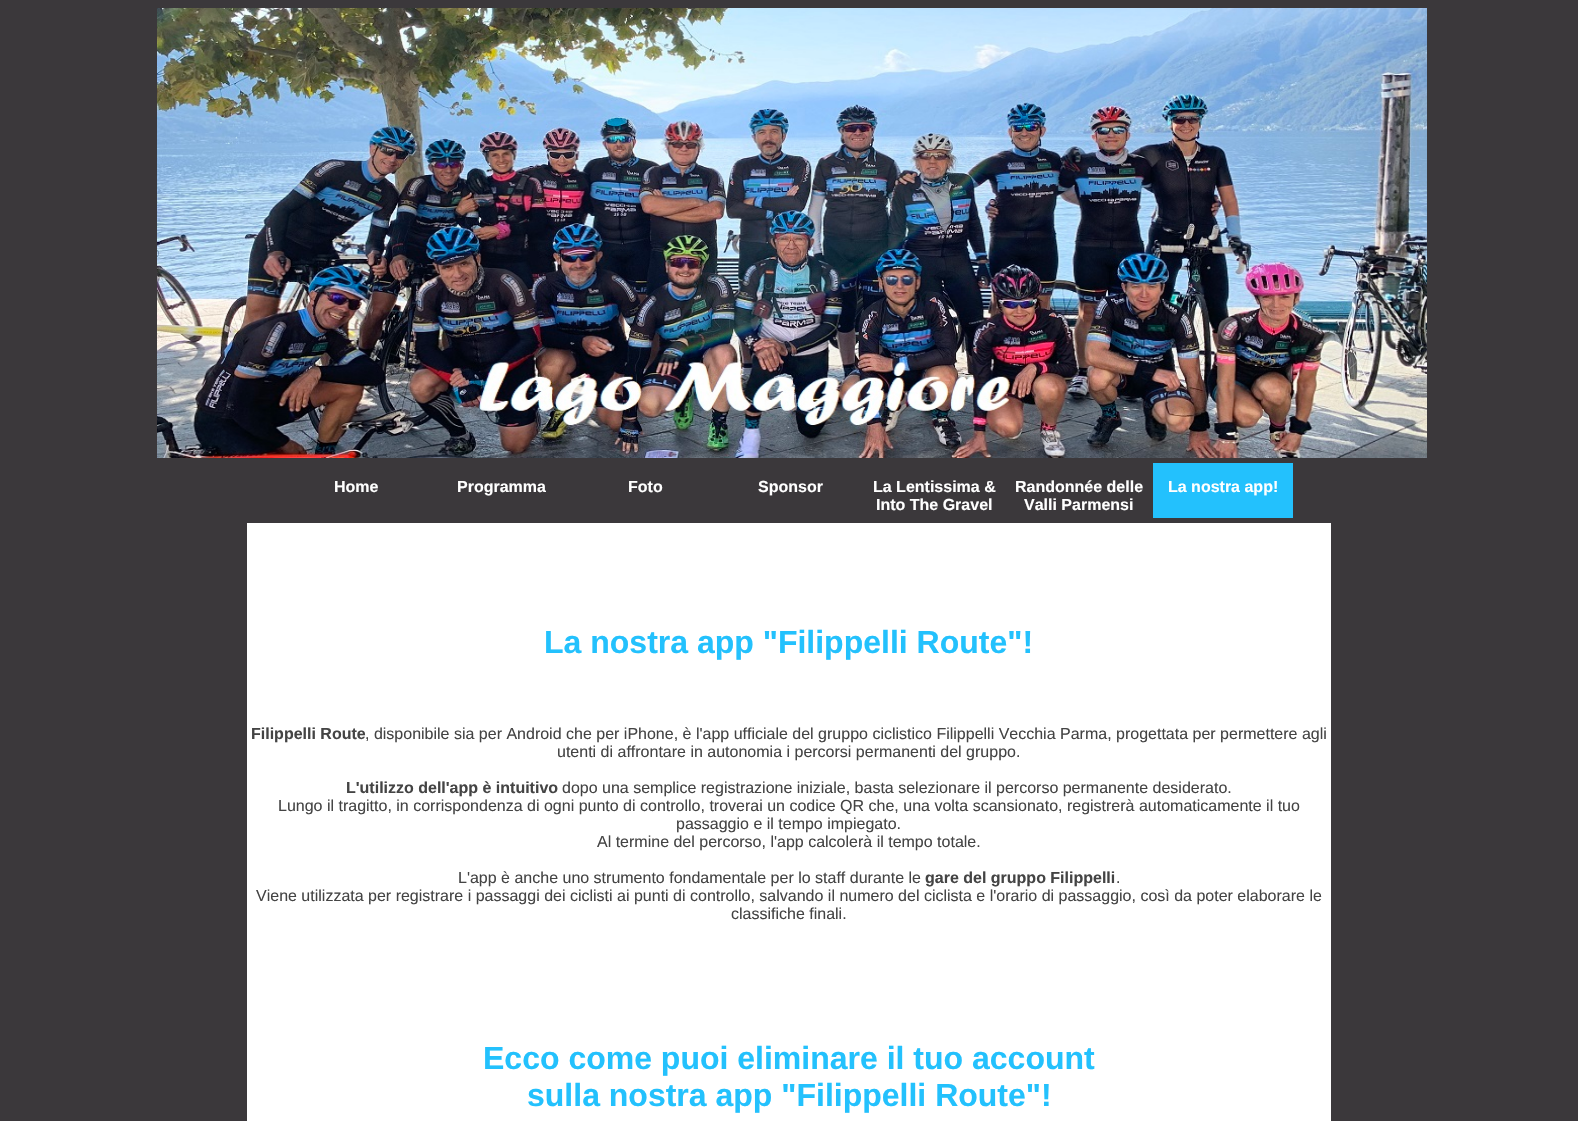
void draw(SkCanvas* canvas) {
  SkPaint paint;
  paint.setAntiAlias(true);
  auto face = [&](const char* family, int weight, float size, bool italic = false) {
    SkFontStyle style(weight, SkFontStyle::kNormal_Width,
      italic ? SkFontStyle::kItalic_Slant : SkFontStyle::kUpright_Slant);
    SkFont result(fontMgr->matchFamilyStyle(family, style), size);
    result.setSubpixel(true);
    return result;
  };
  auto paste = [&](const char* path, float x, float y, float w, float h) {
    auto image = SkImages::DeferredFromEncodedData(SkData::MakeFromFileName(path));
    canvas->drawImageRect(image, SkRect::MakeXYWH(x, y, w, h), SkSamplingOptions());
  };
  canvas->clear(0xff3b383b);
  paste("img/1.png", 157, 8, 1270, 450);
  paint.setColor(0xff23c1fd);
  canvas->drawRect(SkRect::MakeXYWH(1153, 463, 140, 55), paint);
  paint.setColor(0xffffffff);
  canvas->drawRect(SkRect::MakeXYWH(247, 523, 1084, 598), paint);
  auto f0 = face("Liberation Sans", 700, 16);
  {
    const struct { const char* s; float x, y; } items[] = {
      {"Home", 334, 492},
      {"Programma", 457, 492},
      {"Foto", 628, 492},
      {"Sponsor", 758, 492},
      {"La Lentissima &", 873, 492},
      {"Into The Gravel", 876, 510},
      {"Randonnée delle", 1015, 492},
      {"Valli Parmensi", 1024, 510},
      {"La nostra app!", 1168, 492},
    };
    for (auto [s, x, y] : items) {
      canvas->drawString(s, x, y, f0, paint);
    }
  }
  auto f1 = face("Liberation Sans", 700, 32);
  paint.setColor(0xff23c1fd);
  canvas->drawString("La nostra app \"Filippelli Route\"!", 544, 653, f1, paint);
  paint.setColor(0xff444444);
  canvas->drawString("Filippelli Route", 251, 739, f0, paint);
  auto f2 = face("Liberation Sans", 400, 16);
  canvas->drawString(", disponibile sia per Android che per iPhone, è l'app ufficiale del gruppo ciclistico Filippelli Vecchia Parma, progettata per permettere agli", 365, 739, f2, paint);
  canvas->drawString("utenti di affrontare in autonomia i percorsi permanenti del gruppo.", 557, 757, f2, paint);
  canvas->drawString("L'utilizzo dell'app è intuitivo", 346, 793, f0, paint);
  {
    const struct { const char* s; float x, y; } items[] = {
      {"dopo una semplice registrazione iniziale, basta selezionare il percorso permanente desiderato.", 562, 793},
      {"Lungo il tragitto, in corrispondenza di ogni punto di controllo, troverai un codice QR che, una volta scansionato, registrerà automaticamente il tuo", 278, 811},
      {"passaggio e il tempo impiegato.", 676, 829},
      {"Al termine del percorso, l'app calcolerà il tempo totale.", 597, 847},
      {"L'app è anche uno strumento fondamentale per lo staff durante le", 458, 883},
    };
    for (auto [s, x, y] : items) {
      canvas->drawString(s, x, y, f2, paint);
    }
  }
  canvas->drawString("gare del gruppo Filippelli", 925, 883, f0, paint);
  {
    const struct { const char* s; float x, y; } items[] = {
      {".", 1116, 883},
      {"Viene utilizzata per registrare i passaggi dei ciclisti ai punti di controllo, salvando il numero del ciclista e l'orario di passaggio, così da poter elaborare le", 256, 901},
      {"classifiche finali.", 731, 919},
    };
    for (auto [s, x, y] : items) {
      canvas->drawString(s, x, y, f2, paint);
    }
  }
  paint.setColor(0xff23c1fd);
  canvas->drawString("Ecco come puoi eliminare il tuo account", 483, 1069, f1, paint);
  canvas->drawString("sulla nostra app \"Filippelli Route\"!", 527, 1106, f1, paint);
}
